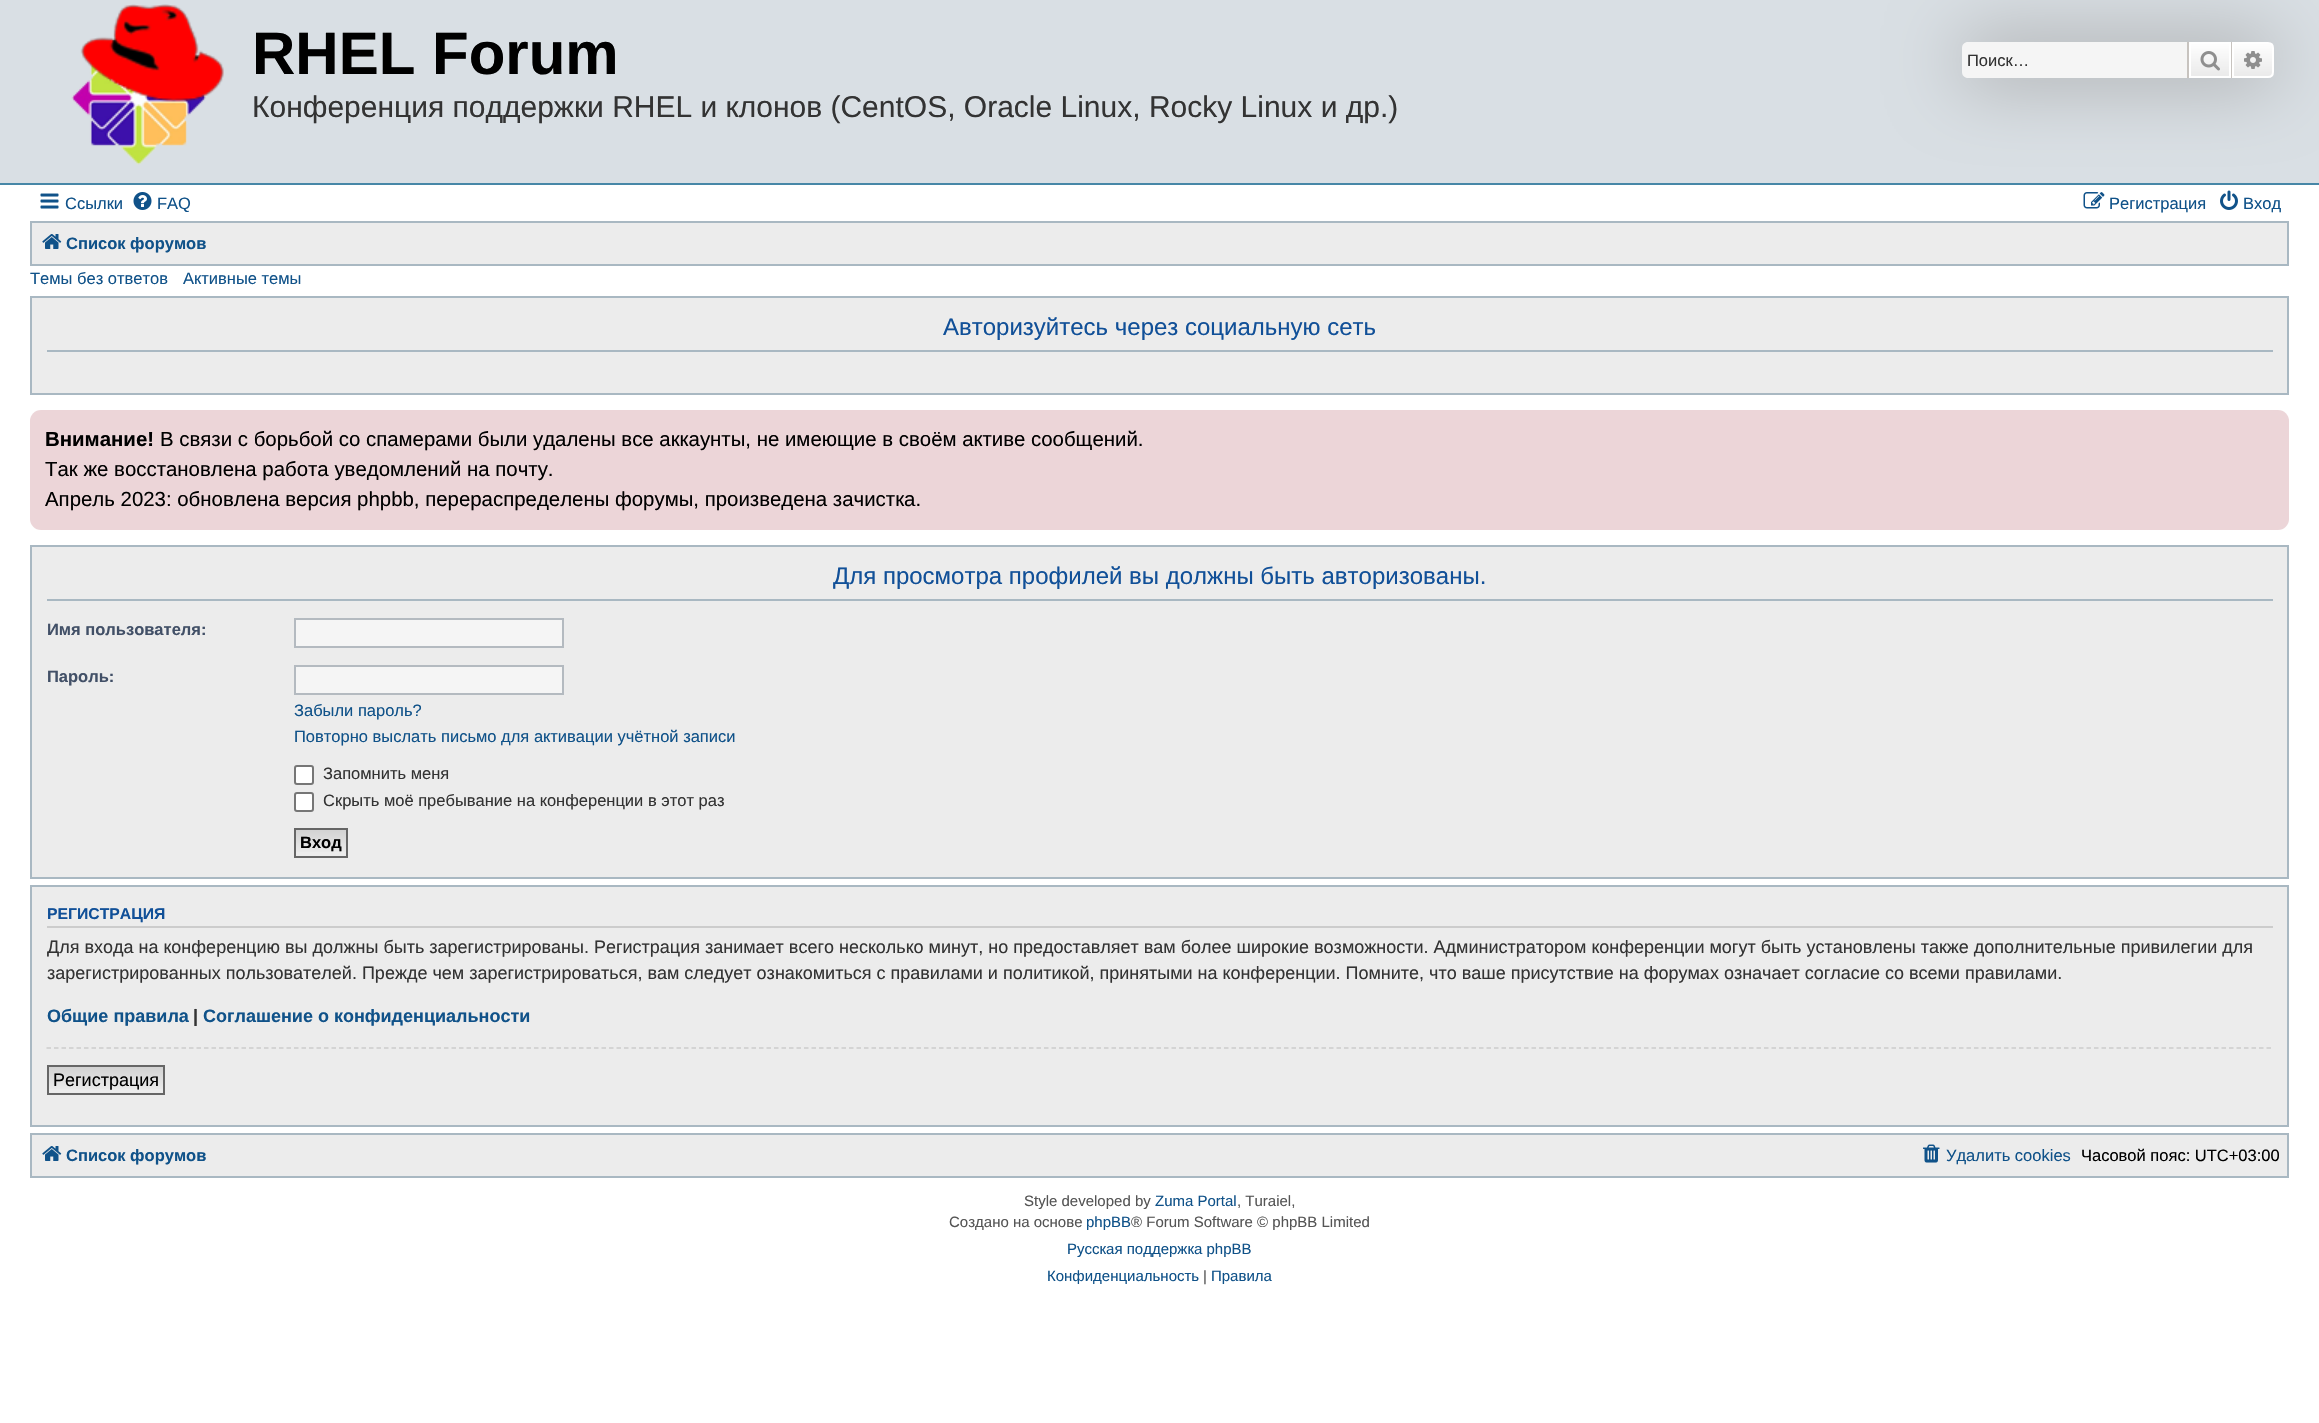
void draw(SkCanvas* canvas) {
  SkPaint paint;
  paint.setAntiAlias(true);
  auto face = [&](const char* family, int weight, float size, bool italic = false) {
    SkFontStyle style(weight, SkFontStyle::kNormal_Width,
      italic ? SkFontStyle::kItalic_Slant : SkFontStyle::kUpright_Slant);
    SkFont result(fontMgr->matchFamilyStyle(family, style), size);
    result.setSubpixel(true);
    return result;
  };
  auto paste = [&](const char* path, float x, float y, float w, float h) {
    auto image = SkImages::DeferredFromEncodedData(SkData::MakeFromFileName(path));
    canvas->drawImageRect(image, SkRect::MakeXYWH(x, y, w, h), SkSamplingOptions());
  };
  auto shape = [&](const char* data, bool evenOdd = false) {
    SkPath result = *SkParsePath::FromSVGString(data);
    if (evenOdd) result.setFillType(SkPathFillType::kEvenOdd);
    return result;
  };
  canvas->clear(0xffffffff);
  paint.setColor(0xffd9dfe4);
  canvas->drawRect(SkRect::MakeXYWH(0, 0, 2319, 183), paint);
  paint.setColor(0xff4787a7);
  canvas->drawRect(SkRect::MakeXYWH(0, 183, 2319, 2), paint);
  paste("img/1.png", 71, 4, 153, 161);
  paint.setColor(0xff999999);
  paint.setMaskFilter(SkMaskFilter::MakeBlur(kNormal_SkBlurStyle, 37.5f));
  canvas->drawRoundRect(SkRect::MakeXYWH(1962, 42, 312, 36), 6, 6, paint);
  paint.setMaskFilter(nullptr);
  paint.setColor(0xfff5f5f5);
  canvas->drawPath(shape("M1968 42H2187V78H1968C1964.5 78 1962 75.5 1962 72V48C1962 44.5 1964.5 42 1968 42Z"), paint);
  {
    const SkColor colors[] = {0xffffffff, 0xffe9e9e9};
    const float stops[] = {0, 1};
    const SkPoint ends[] = {{2210, 42}, {2210, 78}};
    paint.setShader(SkGradientShader::MakeLinear(ends, colors, stops, 2, SkTileMode::kClamp));
    paint.setAlpha(255);
  }
  canvas->drawRect(SkRect::MakeXYWH(2191, 44, 38, 32), paint);
  paint.setStroke(true);
  paint.setStrokeWidth(2);
  paint.setShader(nullptr);
  paint.setColor(0xffffffff);
  canvas->drawRect(SkRect::MakeXYWH(2190, 43, 40, 34), paint);
  paint.setStroke(false);
  paint.setColor(0xffc7c3bf);
  canvas->drawRect(SkRect::MakeXYWH(2231, 42, 1, 36), paint);
  canvas->drawRect(SkRect::MakeXYWH(2187, 42, 2, 36), paint);
  paste("img/2.png", 2200, 51, 20, 20);
  {
    const SkColor colors[] = {0xffffffff, 0xffe9e9e9};
    const float stops[] = {0, 1};
    const SkPoint ends[] = {{2253, 42}, {2253, 78}};
    paint.setShader(SkGradientShader::MakeLinear(ends, colors, stops, 2, SkTileMode::kClamp));
    paint.setAlpha(255);
  }
  canvas->drawPath(shape("M2233 43H2268C2271 43 2273 45 2273 48V72C2273 75 2271 77 2268 77H2233Z"), paint);
  paint.setStroke(true);
  paint.setShader(nullptr);
  paint.setColor(0xffffffff);
  canvas->drawPath(shape("M2233 43H2268C2271 43 2273 45 2273 48V72C2273 75 2271 77 2268 77H2233Z"), paint);
  paste("img/3.png", 2244, 51, 18, 18);
  paste("img/4.png", 40, 193, 19, 16);
  paste("img/5.png", 133, 192, 19, 18);
  paste("img/6.png", 2083, 192, 22, 17);
  paste("img/7.png", 2220, 190, 18, 20);
  paint.setStroke(false);
  paint.setColor(0xffececec);
  canvas->drawRect(SkRect::MakeXYWH(31, 222, 2257, 43), paint);
  paint.setStroke(true);
  paint.setColor(0xffa9b8c2);
  canvas->drawRect(SkRect::MakeXYWH(31, 222, 2257, 43), paint);
  paste("img/8.png", 42, 234, 20, 15);
  paint.setStroke(false);
  paint.setColor(0xffececec);
  canvas->drawRect(SkRect::MakeXYWH(31, 297, 2257, 97), paint);
  paint.setStroke(true);
  paint.setColor(0xffa9b8c2);
  canvas->drawRect(SkRect::MakeXYWH(31, 297, 2257, 97), paint);
  paint.setStroke(false);
  canvas->drawRect(SkRect::MakeXYWH(47, 350, 2226, 2), paint);
  paint.setColor(0xffecd5d8);
  canvas->drawRoundRect(SkRect::MakeXYWH(30, 410, 2259, 120), 11, 11, paint);
  paint.setColor(0xffececec);
  canvas->drawRect(SkRect::MakeXYWH(31, 546, 2257, 332), paint);
  paint.setStroke(true);
  paint.setColor(0xffa9b8c2);
  canvas->drawRect(SkRect::MakeXYWH(31, 546, 2257, 332), paint);
  paint.setStroke(false);
  canvas->drawRect(SkRect::MakeXYWH(47, 599, 2226, 2), paint);
  paint.setColor(0xfff5f5f5);
  canvas->drawRect(SkRect::MakeXYWH(295, 619, 268, 28), paint);
  paint.setStroke(true);
  paint.setColor(0xffb4bac0);
  canvas->drawRect(SkRect::MakeXYWH(295, 619, 268, 28), paint);
  paint.setStroke(false);
  paint.setColor(0xfff5f5f5);
  canvas->drawRect(SkRect::MakeXYWH(295, 666, 268, 28), paint);
  paint.setStroke(true);
  paint.setColor(0xffb4bac0);
  canvas->drawRect(SkRect::MakeXYWH(295, 666, 268, 28), paint);
  paint.setStroke(false);
  paint.setColor(0xffffffff);
  canvas->drawRoundRect(SkRect::MakeXYWH(295, 766, 18, 18), 2, 2, paint);
  paint.setStroke(true);
  paint.setColor(0xff767676);
  canvas->drawRoundRect(SkRect::MakeXYWH(295, 766, 18, 18), 2, 2, paint);
  paint.setStroke(false);
  paint.setColor(0xffffffff);
  canvas->drawRoundRect(SkRect::MakeXYWH(295, 793, 18, 18), 2, 2, paint);
  paint.setStroke(true);
  paint.setColor(0xff767676);
  canvas->drawRoundRect(SkRect::MakeXYWH(295, 793, 18, 18), 2, 2, paint);
  paint.setStroke(false);
  {
    const SkColor colors[] = {0xffd2d2d2, 0xffefefef};
    const float stops[] = {0, 1};
    const SkPoint ends[] = {{321, 830}, {321, 857}};
    paint.setShader(SkGradientShader::MakeLinear(ends, colors, stops, 2, SkTileMode::kClamp));
    paint.setAlpha(255);
  }
  canvas->drawRect(SkRect::MakeXYWH(296, 830, 50, 22), paint);
  paint.setStroke(true);
  paint.setShader(nullptr);
  paint.setColor(0xff666666);
  canvas->drawRect(SkRect::MakeXYWH(295, 829, 52, 28), paint);
  paint.setStroke(false);
  paint.setColor(0xffececec);
  canvas->drawRect(SkRect::MakeXYWH(31, 886, 2257, 240), paint);
  paint.setStroke(true);
  paint.setColor(0xffa9b8c2);
  canvas->drawRect(SkRect::MakeXYWH(31, 886, 2257, 240), paint);
  paint.setStroke(false);
  paint.setColor(0xffcccccc);
  canvas->drawRect(SkRect::MakeXYWH(47, 926, 2226, 2), paint);
  paint.setStroke(true);
  paint.setStrokeWidth(1.5f);
  paint.setPathEffect(SkDashPathEffect::Make({{4.5f, 3}}, 0));
  canvas->drawPath(shape("M46.5 1048H2272.5"), paint);
  paint.setPathEffect(nullptr);
  paint.setStroke(false);
  {
    const SkColor colors[] = {0xffd2d2d2, 0xffefefef};
    const float stops[] = {0, 1};
    const SkPoint ends[] = {{106, 1067}, {106, 1094}};
    paint.setShader(SkGradientShader::MakeLinear(ends, colors, stops, 2, SkTileMode::kClamp));
    paint.setAlpha(255);
  }
  canvas->drawRect(SkRect::MakeXYWH(49, 1067, 114, 22), paint);
  paint.setStroke(true);
  paint.setStrokeWidth(2);
  paint.setShader(nullptr);
  paint.setColor(0xff666666);
  canvas->drawRect(SkRect::MakeXYWH(48, 1066, 116, 28), paint);
  paint.setStroke(false);
  paint.setColor(0xffececec);
  canvas->drawRect(SkRect::MakeXYWH(31, 1134, 2257, 43), paint);
  paint.setStroke(true);
  paint.setColor(0xffa9b8c2);
  canvas->drawRect(SkRect::MakeXYWH(31, 1134, 2257, 43), paint);
  paste("img/8.png", 42, 1146, 20, 15);
  paste("img/9.png", 1923, 1144, 17, 19);
  auto f0 = face("Liberation Sans", 700, 60);
  paint.setStroke(false);
  paint.setColor(0xff000000);
  canvas->drawString("RHEL Forum", 252, 74, f0, paint);
  auto f1 = face("Liberation Sans", 400, 30);
  paint.setColor(0xff333333);
  canvas->drawString("Конференция поддержки RHEL и клонов (CentOS, Oracle Linux, Rocky Linux и др.)", 252, 117, f1, paint);
  auto f2 = face("Liberation Sans", 400, 16.5f);
  canvas->drawString("Поиск…", 1967, 66, f2, paint);
  paint.setColor(0xff105289);
  {
    const struct { const char* s; float x, y; } items[] = {
      {"Ссылки", 65, 209},
      {"FAQ", 157, 209},
      {"Регистрация", 2109, 209},
      {"Вход", 2243, 209},
    };
    for (auto [s, x, y] : items) {
      canvas->drawString(s, x, y, f2, paint);
    }
  }
  auto f3 = face("Liberation Sans", 700, 16.5f);
  canvas->drawString("Список форумов", 66, 249, f3, paint);
  canvas->drawString("Темы без ответов", 30, 284, f2, paint);
  canvas->drawString("Активные темы", 183, 284, f2, paint);
  auto f4 = face("Liberation Sans", 400, 24);
  paint.setColor(0xff115098);
  canvas->drawString("Авторизуйтесь через социальную сеть", 943, 335, f4, paint);
  auto f5 = face("Liberation Sans", 700, 20.4f);
  paint.setColor(0xff000000);
  canvas->drawString("Внимание!", 45, 446, f5, paint);
  auto f6 = face("Liberation Sans", 400, 20.4f);
  {
    const struct { const char* s; float x, y; } items[] = {
      {"В связи с борьбой со спамерами были удалены все аккаунты, не имеющие в своём активе сообщений.", 160, 446},
      {"Так же восстановлена работа уведомлений на почту.", 45, 476},
      {"Апрель 2023: обновлена версия phpbb, перераспределены форумы, произведена зачистка.", 45, 506},
    };
    for (auto [s, x, y] : items) {
      canvas->drawString(s, x, y, f6, paint);
    }
  }
  paint.setColor(0xff115098);
  canvas->drawString("Для просмотра профилей вы должны быть авторизованы.", 833, 584, f4, paint);
  paint.setColor(0xff425067);
  canvas->drawString("Имя пользователя:", 47, 635, f3, paint);
  canvas->drawString("Пароль:", 47, 682, f3, paint);
  paint.setColor(0xff105289);
  canvas->drawString("Забыли пароль?", 294, 716, f2, paint);
  canvas->drawString("Повторно выслать письмо для активации учётной записи", 294, 742, f2, paint);
  paint.setColor(0xff333333);
  canvas->drawString("Запомнить меня", 323, 779, f2, paint);
  canvas->drawString("Скрыть моё пребывание на конференции в этот раз", 323, 806, f2, paint);
  paint.setColor(0xff000000);
  canvas->drawString("Вход", 300, 848, f3, paint);
  auto f7 = face("Liberation Sans", 700, 15.75f);
  paint.setColor(0xff115098);
  canvas->drawString("РЕГИСТРАЦИЯ", 47, 919, f7, paint);
  canvas->save();
  canvas->clipRect(SkRect::MakeXYWH(47, 894, 2226, 224));
  auto f8 = face("Liberation Sans", 400, 18);
  paint.setColor(0xff333333);
  canvas->drawString("Для входа на конференцию вы должны быть зарегистрированы. Регистрация занимает всего несколько минут, но предоставляет вам более широкие возможности. Администратором конференции могут быть установлены также дополнительные привилегии для", 47, 953, f8, paint);
  canvas->restore();
  canvas->drawString("зарегистрированных пользователей. Прежде чем зарегистрироваться, вам следует ознакомиться с правилами и политикой, принятыми на конференции. Помните, что ваше присутствие на форумах означает согласие со всеми правилами.", 47, 979, f8, paint);
  auto f9 = face("Liberation Sans", 700, 18);
  paint.setColor(0xff105289);
  canvas->drawString("Общие правила", 47, 1022, f9, paint);
  paint.setColor(0xff333333);
  canvas->drawString("|", 193, 1022, f9, paint);
  paint.setColor(0xff105289);
  canvas->drawString("Соглашение о конфиденциальности", 203, 1022, f9, paint);
  paint.setColor(0xff000000);
  canvas->drawString("Регистрация", 53, 1086, f8, paint);
  paint.setColor(0xff105289);
  canvas->drawString("Список форумов", 66, 1161, f3, paint);
  canvas->drawString("Удалить cookies", 1946, 1161, f2, paint);
  paint.setColor(0xff000000);
  canvas->drawString("Часовой пояс: UTC+03:00", 2081, 1161, f2, paint);
  auto f10 = face("Liberation Sans", 400, 15);
  paint.setColor(0xff555555);
  canvas->drawString("Style developed by", 1024, 1206, f10, paint);
  paint.setColor(0xff105289);
  canvas->drawString("Zuma Portal", 1155, 1206, f10, paint);
  paint.setColor(0xff555555);
  canvas->drawString(", Turaiel,", 1237, 1206, f10, paint);
  canvas->drawString("Создано на основе", 949, 1227, f10, paint);
  paint.setColor(0xff105289);
  canvas->drawString("phpBB", 1086, 1227, f10, paint);
  paint.setColor(0xff555555);
  canvas->drawString("® Forum Software © phpBB Limited", 1131, 1227, f10, paint);
  paint.setColor(0xff105289);
  canvas->drawString("Русская поддержка phpBB", 1067, 1254, f10, paint);
  canvas->drawString("Конфиденциальность", 1047, 1281, f10, paint);
  paint.setColor(0xff555555);
  canvas->drawString("|", 1203, 1281, f10, paint);
  paint.setColor(0xff105289);
  canvas->drawString("Правила", 1211, 1281, f10, paint);
}
